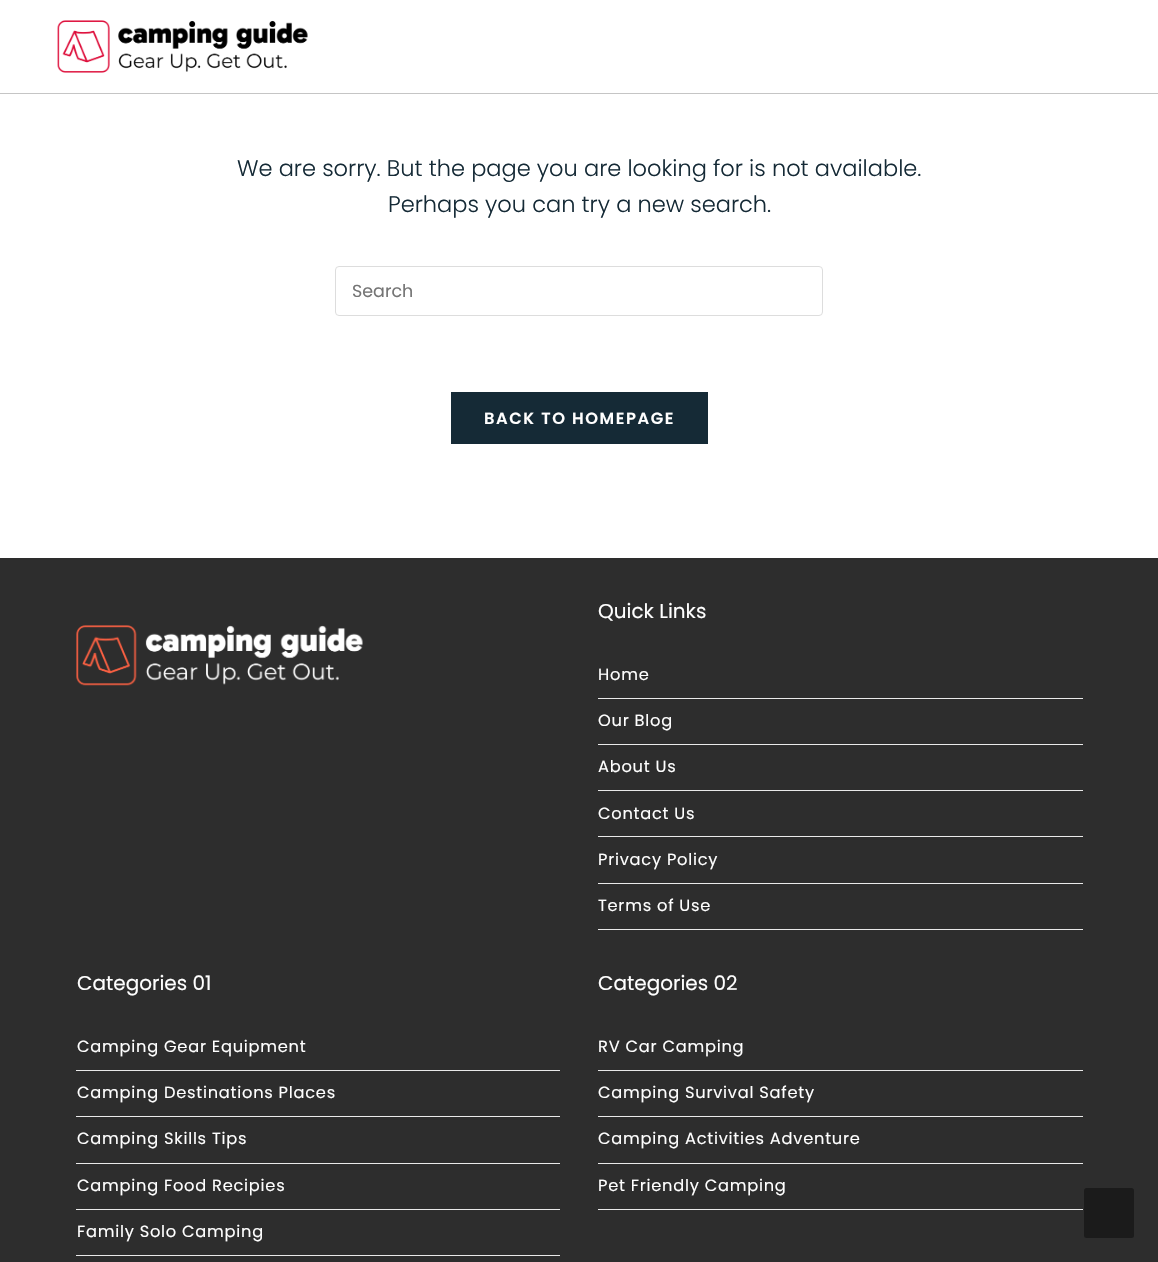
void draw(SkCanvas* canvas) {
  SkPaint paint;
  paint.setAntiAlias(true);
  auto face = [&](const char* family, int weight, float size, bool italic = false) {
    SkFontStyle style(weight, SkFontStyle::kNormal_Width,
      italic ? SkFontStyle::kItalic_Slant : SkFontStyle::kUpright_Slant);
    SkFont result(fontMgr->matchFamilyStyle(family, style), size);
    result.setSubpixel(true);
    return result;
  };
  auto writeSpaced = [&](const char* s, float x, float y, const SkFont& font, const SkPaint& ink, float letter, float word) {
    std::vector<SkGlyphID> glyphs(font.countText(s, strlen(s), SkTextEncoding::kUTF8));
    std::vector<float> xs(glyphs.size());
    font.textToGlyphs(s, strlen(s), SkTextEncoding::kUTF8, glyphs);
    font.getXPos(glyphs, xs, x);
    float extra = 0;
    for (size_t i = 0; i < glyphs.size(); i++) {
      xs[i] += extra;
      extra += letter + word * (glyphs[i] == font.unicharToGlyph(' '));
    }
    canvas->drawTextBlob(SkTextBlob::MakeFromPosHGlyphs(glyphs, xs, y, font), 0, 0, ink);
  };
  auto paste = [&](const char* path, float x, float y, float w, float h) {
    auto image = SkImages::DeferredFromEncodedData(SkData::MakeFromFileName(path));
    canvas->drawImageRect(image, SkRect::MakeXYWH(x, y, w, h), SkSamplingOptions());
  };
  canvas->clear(0xffffffff);
  paint.setColor(0xffc5c5c5);
  canvas->drawRect(SkRect::MakeXYWH(0, 93, 1158, 1), paint);
  paste("img/1.png", 57, 20, 251, 53);
  paint.setStroke(true);
  paint.setStrokeWidth(1);
  paint.setColor(0xffdddddd);
  canvas->drawRoundRect(SkRect::MakeXYWH(335.5f, 266.5f, 487, 49), 3.5f, 3.5f, paint);
  paint.setStroke(false);
  paint.setColor(0xff152a36);
  canvas->drawRect(SkRect::MakeXYWH(451, 392, 257, 52), paint);
  paint.setColor(0xff2d2d2d);
  canvas->drawRect(SkRect::MakeXYWH(0, 558, 1158, 704), paint);
  paste("img/2.png", 76, 625, 287, 61);
  {
    const struct { float x, y, w, h; SkColor color; } items[] = {
      {598, 698, 485, 1, 0xffe9e9e9},
      {598, 744, 485, 1, 0xffe9e9e9},
      {598, 790, 485, 1, 0xffe9e9e9},
      {598, 836, 485, 1, 0xffe9e9e9},
      {598, 883, 485, 1, 0xffe9e9e9},
      {598, 929, 485, 1, 0xffe9e9e9},
      {76, 1070, 484, 1, 0xffe9e9e9},
      {76, 1116, 484, 1, 0xffe9e9e9},
      {76, 1163, 484, 1, 0xffe9e9e9},
      {76, 1209, 484, 1, 0xffe9e9e9},
      {76, 1255, 484, 1, 0xffe9e9e9},
      {598, 1070, 485, 1, 0xffe9e9e9},
      {598, 1116, 485, 1, 0xffe9e9e9},
      {598, 1163, 485, 1, 0xffe9e9e9},
      {598, 1209, 485, 1, 0xffe9e9e9},
    };
    for (auto [x, y, w, h, color] : items) {
      paint.setColor(color);
      canvas->drawRect(SkRect::MakeXYWH(x, y, w, h), paint);
    }
  }
  paint.setColor(0xff1b1b1b);
  canvas->drawRoundRect(SkRect::MakeXYWH(1084, 1188, 50, 50), 2.5f, 2.5f, paint);
  auto f0 = face("Poppins", 300, 22.5f);
  paint.setColor(0xff152a36);
  canvas->drawString("We are sorry. But the page you are looking for is not available.", 237, 176, f0, paint);
  canvas->drawString("Perhaps you can try a new search.", 388, 212, f0, paint);
  auto f1 = face("Poppins", 400, 17.5f);
  paint.setColor(0xff757575);
  canvas->drawString("Search", 352, 297, f1, paint);
  auto f2 = face("Poppins", 600, 16.25f);
  paint.setColor(0xffffffff);
  writeSpaced("BACK TO HOMEPAGE", 484, 424, f2, paint, 1.6f, 0);
  auto f3 = face("Poppins", 400, 20);
  canvas->drawString("Quick Links", 598, 618, f3, paint);
  auto f4 = face("Poppins", 400, 16.25f);
  {
    const struct { const char* s; float x, y; } items[] = {
      {"Home", 598, 680},
      {"Our Blog", 598, 726},
      {"About Us", 598, 772},
      {"Contact Us", 598, 819},
      {"Privacy Policy", 598, 865},
      {"Terms of Use", 598, 911},
    };
    for (auto [s, x, y] : items) {
      writeSpaced(s, x, y, f4, paint, 0.75f, 0);
    }
  }
  canvas->drawString("Categories 01", 77, 990, f3, paint);
  {
    const struct { const char* s; float x, y; } items[] = {
      {"Camping Gear Equipment", 77, 1052},
      {"Camping Destinations Places", 77, 1098},
      {"Camping Skills Tips", 77, 1144},
      {"Camping Food Recipies", 77, 1191},
      {"Family Solo Camping", 77, 1237},
    };
    for (auto [s, x, y] : items) {
      writeSpaced(s, x, y, f4, paint, 0.75f, 0);
    }
  }
  canvas->drawString("Categories 02", 598, 990, f3, paint);
  {
    const struct { const char* s; float x, y; } items[] = {
      {"RV Car Camping", 598, 1052},
      {"Camping Survival Safety", 598, 1098},
      {"Camping Activities Adventure", 598, 1144},
      {"Pet Friendly Camping", 598, 1191},
    };
    for (auto [s, x, y] : items) {
      writeSpaced(s, x, y, f4, paint, 0.75f, 0);
    }
  }
}
